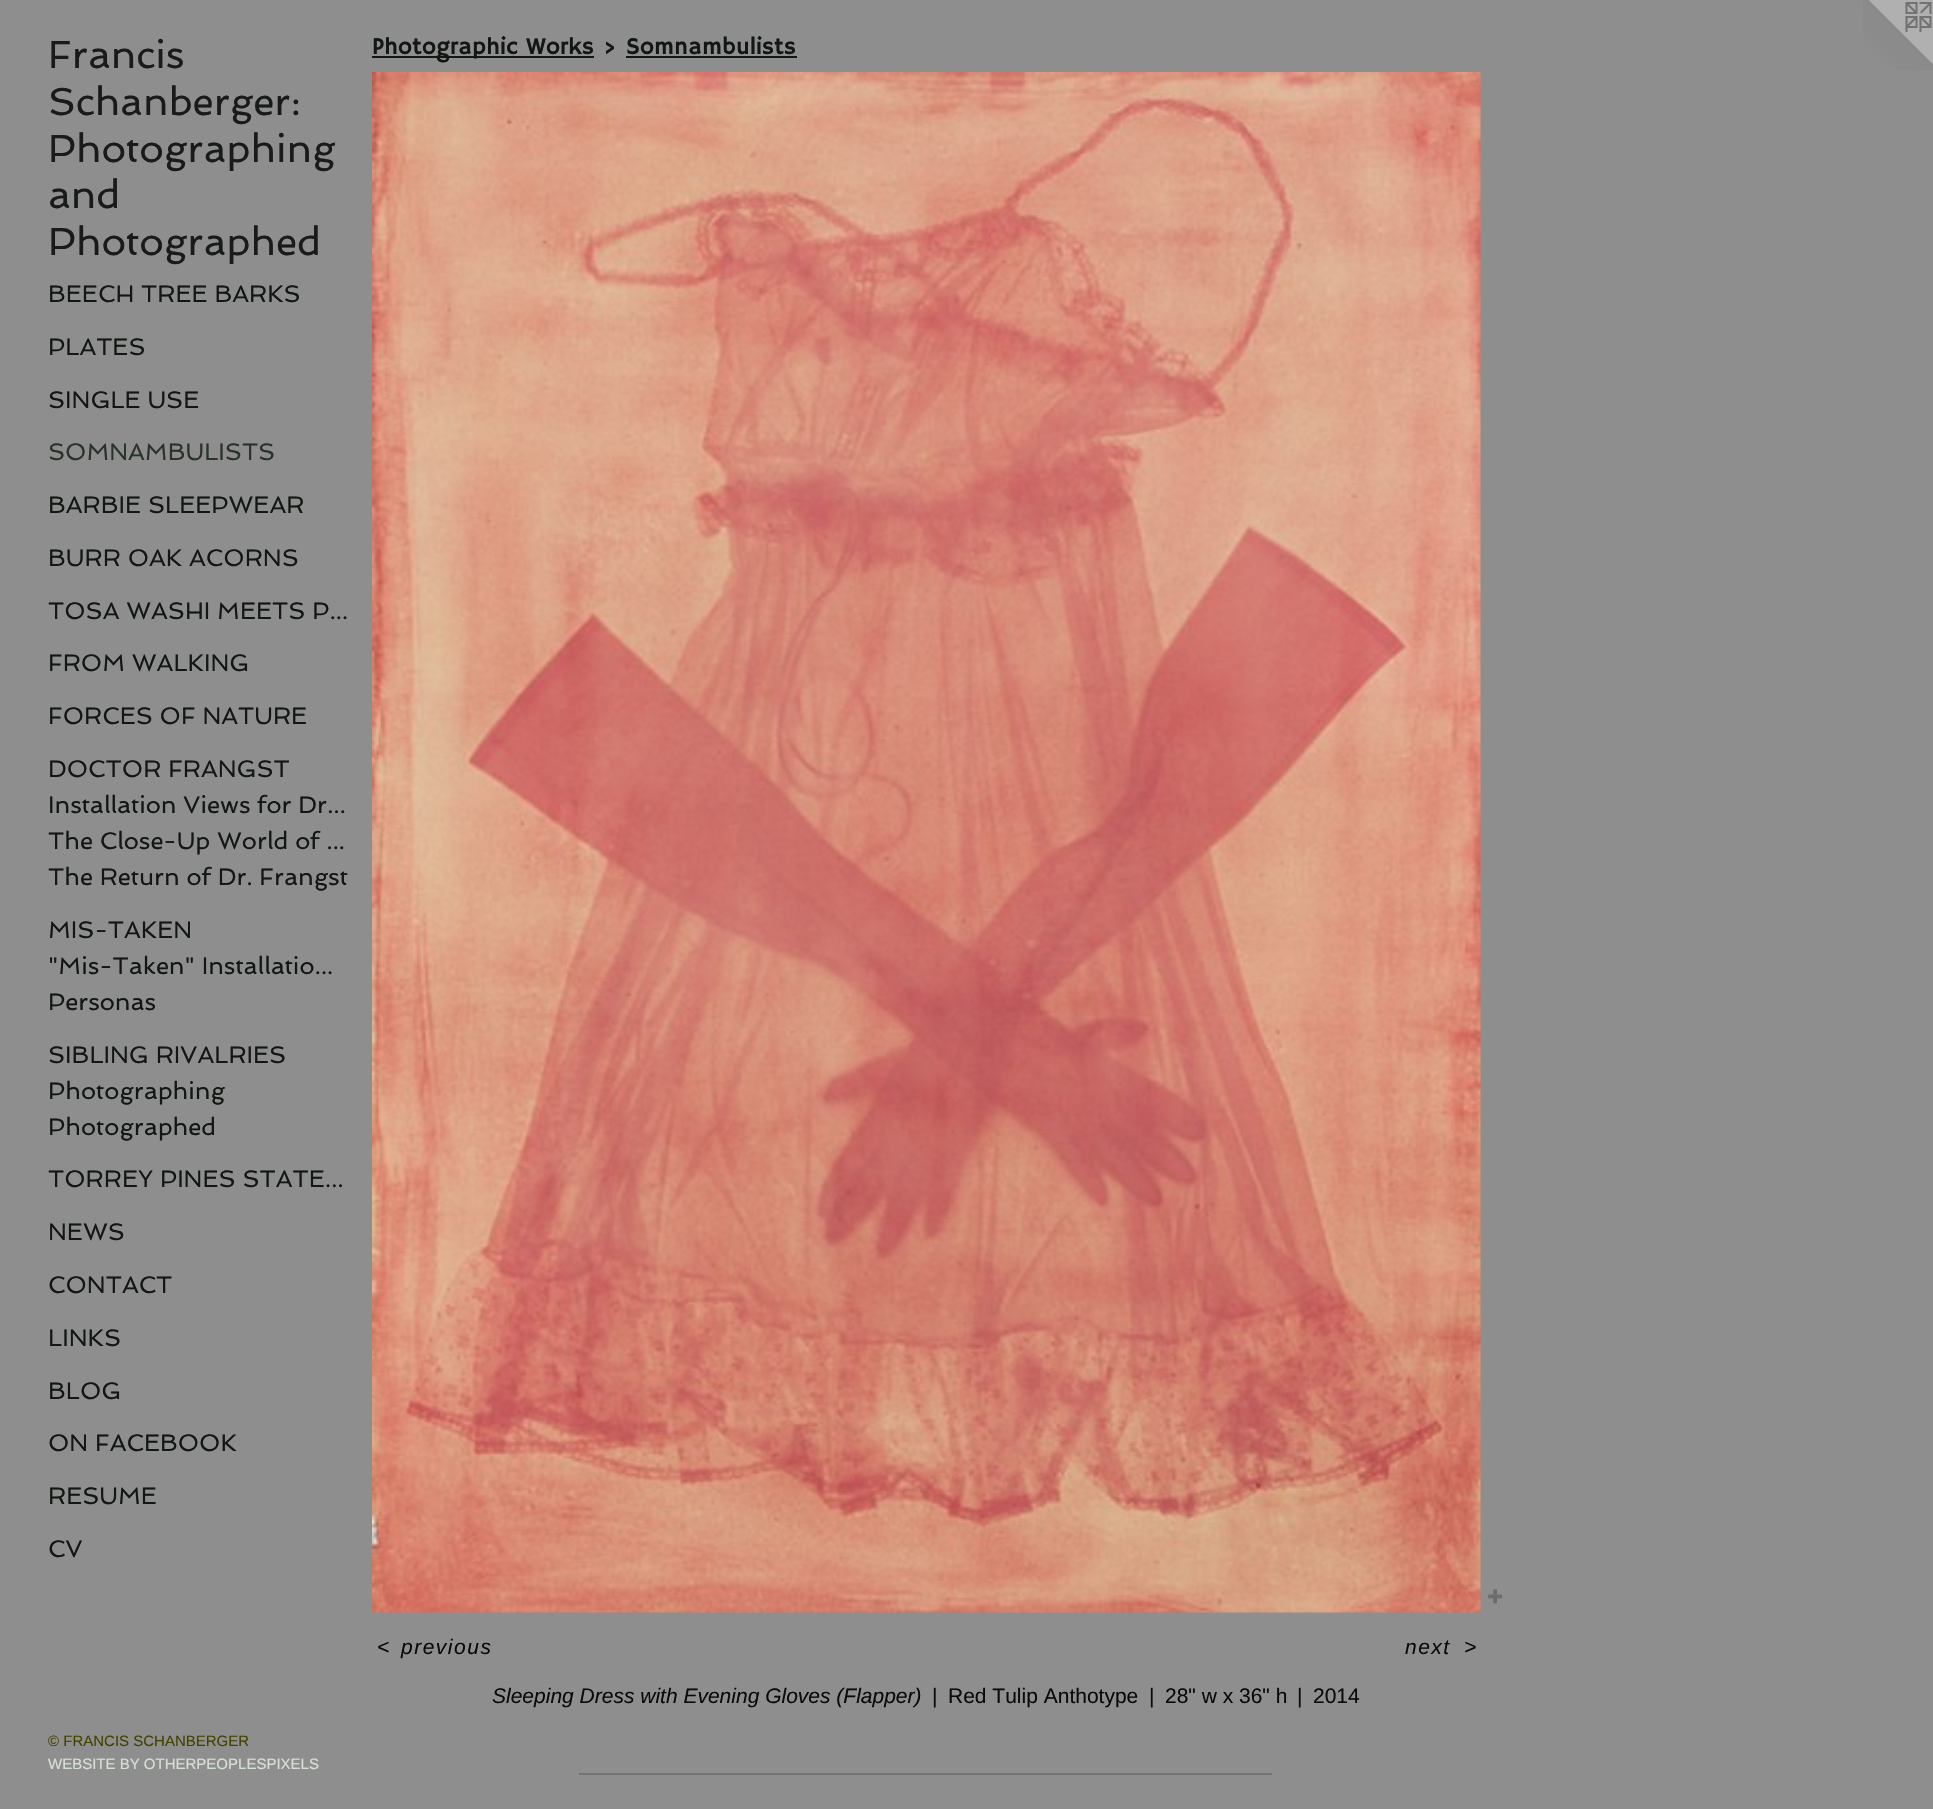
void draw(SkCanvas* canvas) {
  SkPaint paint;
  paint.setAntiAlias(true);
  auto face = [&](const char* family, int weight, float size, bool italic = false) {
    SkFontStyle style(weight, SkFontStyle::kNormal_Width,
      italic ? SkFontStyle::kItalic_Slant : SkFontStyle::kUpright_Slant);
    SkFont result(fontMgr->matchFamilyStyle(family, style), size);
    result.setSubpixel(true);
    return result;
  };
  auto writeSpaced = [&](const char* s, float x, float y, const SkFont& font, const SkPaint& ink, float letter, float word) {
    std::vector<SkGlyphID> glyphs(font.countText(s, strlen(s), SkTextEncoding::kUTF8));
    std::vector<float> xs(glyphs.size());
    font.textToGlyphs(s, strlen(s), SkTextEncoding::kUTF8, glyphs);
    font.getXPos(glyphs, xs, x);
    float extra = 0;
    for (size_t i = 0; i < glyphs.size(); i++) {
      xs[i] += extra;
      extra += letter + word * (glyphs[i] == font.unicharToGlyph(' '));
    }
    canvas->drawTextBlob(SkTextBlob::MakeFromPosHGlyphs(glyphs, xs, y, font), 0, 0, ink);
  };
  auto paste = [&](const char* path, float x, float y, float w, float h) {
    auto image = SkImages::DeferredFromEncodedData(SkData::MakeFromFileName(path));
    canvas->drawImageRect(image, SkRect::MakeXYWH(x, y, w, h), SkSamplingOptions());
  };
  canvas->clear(0xff8e8e8e);
  paint.setColor(0xff121713);
  canvas->drawRect(SkRect::MakeXYWH(372, 56, 222, 2), paint);
  canvas->drawRect(SkRect::MakeXYWH(626, 56, 171, 2), paint);
  paste("img/1.png", 372, 72, 1109, 1541);
  paste("img/2.png", 1488, 1589, 15, 15);
  paint.setColor(0xff737473);
  canvas->drawRect(SkRect::MakeXYWH(579, 1773, 693, 2), paint);
  paste("img/3.png", 1863, 0, 70, 70);
  auto f0 = face("Spinnaker", 400, 39);
  paint.setColor(0xff181b19);
  {
    const struct { const char* s; float x, y; } items[] = {
      {"Francis", 48, 68},
      {"Schanberger:", 48, 115},
      {"Photographing", 48, 162},
      {"and", 48, 208},
      {"Photographed", 48, 255},
    };
    for (auto [s, x, y] : items) {
      canvas->drawString(s, x, y, f0, paint);
    }
  }
  auto f1 = face("Spinnaker", 400, 24);
  paint.setColor(0xff121713);
  {
    const struct { const char* s; float x, y; } items[] = {
      {"BEECH TREE BARKS", 48, 302},
      {"PLATES", 48, 355},
      {"SINGLE USE", 48, 408},
    };
    for (auto [s, x, y] : items) {
      canvas->drawString(s, x, y, f1, paint);
    }
  }
  paint.setColor(0xff28342b);
  canvas->drawString("SOMNAMBULISTS", 48, 460, f1, paint);
  paint.setColor(0xff121713);
  {
    const struct { const char* s; float x, y; } items[] = {
      {"BARBIE SLEEPWEAR", 48, 513},
      {"BURR OAK ACORNS", 48, 566},
      {"TOSA WASHI MEETS P...", 48, 619},
      {"FROM WALKING", 48, 671},
      {"FORCES OF NATURE", 48, 724},
      {"DOCTOR FRANGST", 48, 777},
      {"Installation Views for Dr...", 48, 813},
      {"The Close-Up World of ...", 48, 849},
      {"The Return of Dr. Frangst", 48, 885},
      {"MIS-TAKEN", 48, 938},
      {"\"Mis-Taken\" Installatio...", 48, 974},
      {"Personas", 48, 1010},
      {"SIBLING RIVALRIES", 48, 1063},
      {"Photographing", 48, 1099},
      {"Photographed", 48, 1135},
      {"TORREY PINES STATE...", 48, 1187},
      {"NEWS", 48, 1240},
      {"CONTACT", 48, 1293},
      {"LINKS", 48, 1346},
      {"BLOG", 48, 1399},
      {"ON FACEBOOK", 48, 1451},
      {"RESUME", 48, 1504},
      {"CV", 48, 1557},
    };
    for (auto [s, x, y] : items) {
      canvas->drawString(s, x, y, f1, paint);
    }
  }
  auto f2 = face("Liberation Sans", 400, 15);
  paint.setColor(0xff424200);
  canvas->drawString("© FRANCIS SCHANBERGER", 48, 1746, f2, paint);
  paint.setColor(0xffd6e1d6);
  canvas->drawString("WEBSITE BY OTHERPEOPLESPIXELS", 48, 1769, f2, paint);
  auto f3 = face("Hammersmith One", 400, 24);
  paint.setColor(0xff121713);
  canvas->drawString("Photographic Works > Somnambulists", 372, 54, f3, paint);
  auto f4 = face("Liberation Sans", 400, 21, true);
  paint.setColor(0xff090b09);
  {
    const struct { const char* s; float x, y; } items[] = {
      {"<", 377, 1654},
      {"previous", 401, 1654},
      {"next", 1405, 1654},
      {">", 1464, 1654},
    };
    for (auto [s, x, y] : items) {
      writeSpaced(s, x, y, f4, paint, 1.5f, 0);
    }
  }
  canvas->drawString("Sleeping Dress with Evening Gloves (Flapper)", 492, 1703, f4, paint);
  auto f5 = face("Liberation Sans", 400, 21);
  {
    const struct { const char* s; float x, y; } items[] = {
      {"|", 932, 1703},
      {"Red Tulip Anthotype", 948, 1703},
      {"|", 1149, 1703},
      {"28\" w x 36\" h", 1165, 1703},
      {"|", 1297, 1703},
      {"2014", 1313, 1703},
    };
    for (auto [s, x, y] : items) {
      canvas->drawString(s, x, y, f5, paint);
    }
  }
}
